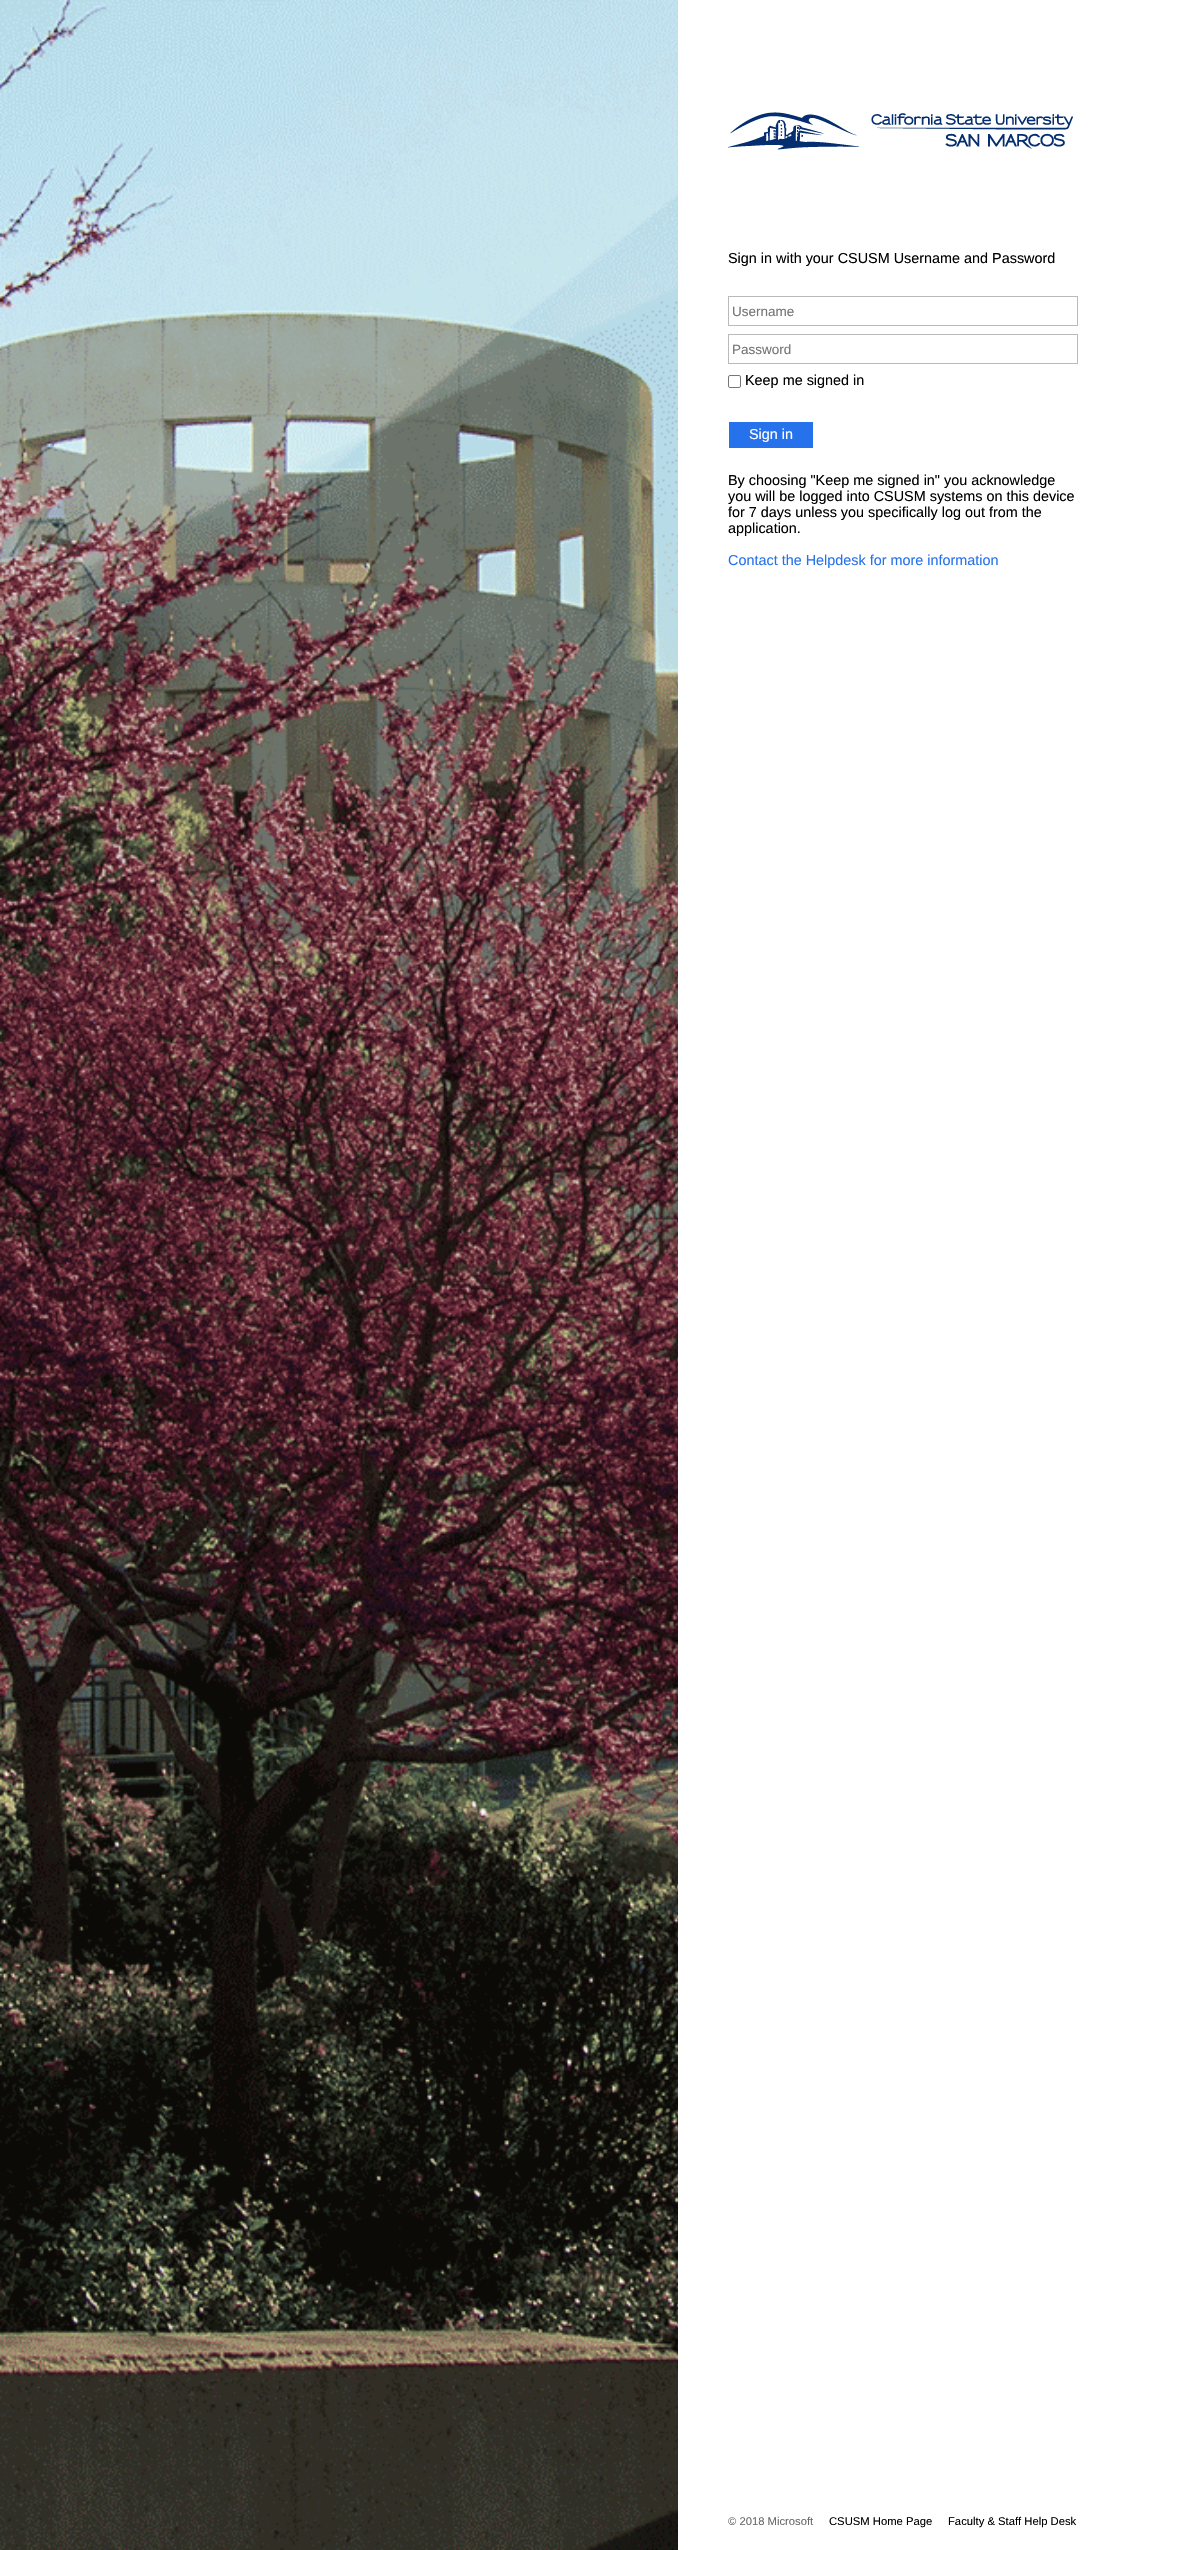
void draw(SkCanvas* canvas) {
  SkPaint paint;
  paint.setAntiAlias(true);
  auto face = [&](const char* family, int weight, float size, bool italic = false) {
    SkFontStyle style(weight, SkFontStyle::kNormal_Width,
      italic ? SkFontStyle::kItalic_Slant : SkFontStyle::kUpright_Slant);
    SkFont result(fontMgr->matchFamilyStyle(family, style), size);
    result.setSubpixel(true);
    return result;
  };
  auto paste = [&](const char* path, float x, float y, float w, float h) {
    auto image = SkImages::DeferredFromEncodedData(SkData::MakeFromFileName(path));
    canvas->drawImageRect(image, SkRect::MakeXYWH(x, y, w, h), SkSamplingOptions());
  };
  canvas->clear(0xffffffff);
  paste("img/1.png", 0, 0, 678, 2550);
  paste("img/2.png", 728, 112, 345, 38);
  paint.setStroke(true);
  paint.setStrokeWidth(1);
  paint.setColor(0xffbababa);
  canvas->drawRect(SkRect::MakeXYWH(728.5f, 296.5f, 349, 29), paint);
  canvas->drawRect(SkRect::MakeXYWH(728.5f, 334.5f, 349, 29), paint);
  paint.setColor(0xff767676);
  canvas->drawRoundRect(SkRect::MakeXYWH(728.5f, 375.5f, 12, 12), 1.5f, 1.5f, paint);
  paint.setStroke(false);
  paint.setColor(0xff2672ec);
  canvas->drawRect(SkRect::MakeXYWH(729, 422, 84, 26), paint);
  auto f0 = face("Liberation Sans", 400, 14.4f);
  paint.setColor(0xff000000);
  canvas->drawString("Sign in with your CSUSM Username and Password", 728, 263, f0, paint);
  auto f1 = face("Liberation Sans", 400, 13.5f);
  paint.setColor(0xff757575);
  canvas->drawString("Username", 732, 316, f1, paint);
  canvas->drawString("Password", 732, 354, f1, paint);
  paint.setColor(0xff000000);
  canvas->drawString("Keep me signed in", 745, 385, f0, paint);
  paint.setColor(0xffffffff);
  canvas->drawString("Sign in", 749, 439, f0, paint);
  paint.setColor(0xff000000);
  {
    const struct { const char* s; float x, y; } items[] = {
      {"By choosing \"Keep me signed in\" you acknowledge", 728, 485},
      {"you will be logged into CSUSM systems on this device", 728, 501},
      {"for 7 days unless you specifically log out from the", 728, 517},
      {"application.", 728, 533},
    };
    for (auto [s, x, y] : items) {
      canvas->drawString(s, x, y, f0, paint);
    }
  }
  paint.setColor(0xff2672ec);
  canvas->drawString("Contact the Helpdesk for more information", 728, 565, f0, paint);
  auto f2 = face("Liberation Sans", 400, 11.25f);
  paint.setColor(0xff696969);
  canvas->drawString("© 2018 Microsoft", 728, 2525, f2, paint);
  paint.setColor(0xff000000);
  canvas->drawString("CSUSM Home Page", 829, 2525, f2, paint);
  canvas->drawString("Faculty & Staff Help Desk", 948, 2525, f2, paint);
}
